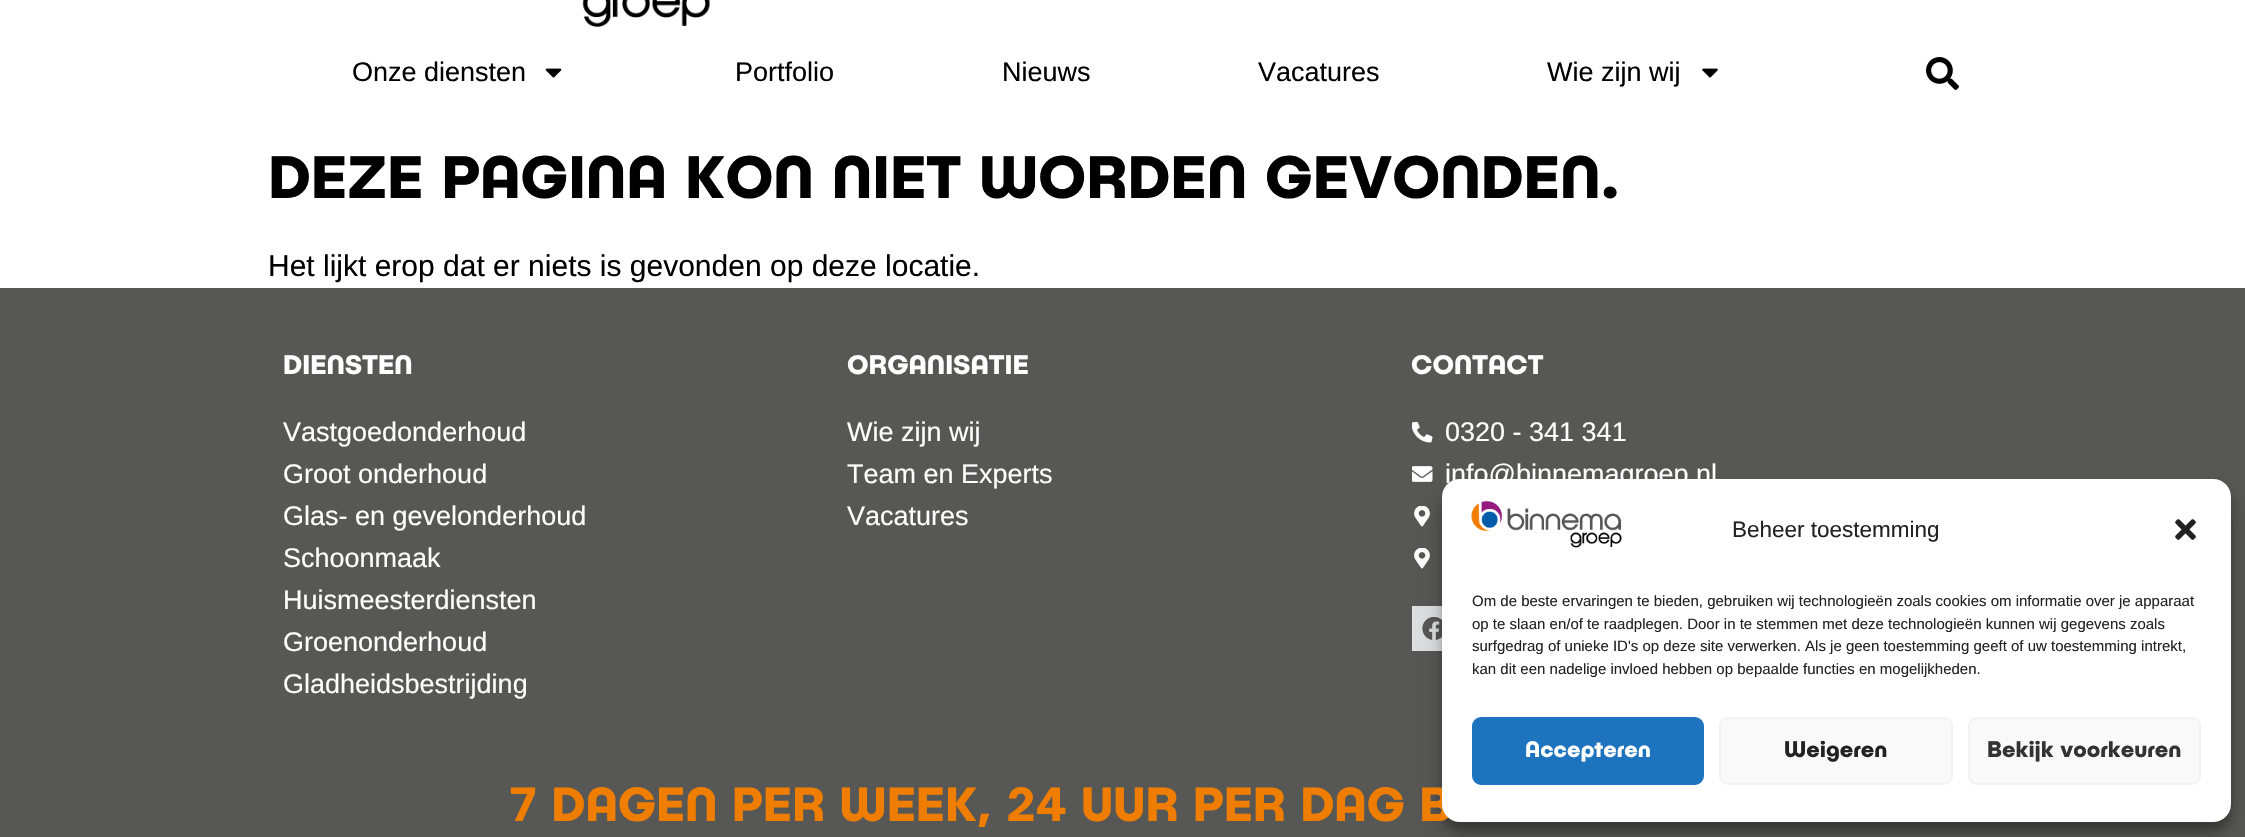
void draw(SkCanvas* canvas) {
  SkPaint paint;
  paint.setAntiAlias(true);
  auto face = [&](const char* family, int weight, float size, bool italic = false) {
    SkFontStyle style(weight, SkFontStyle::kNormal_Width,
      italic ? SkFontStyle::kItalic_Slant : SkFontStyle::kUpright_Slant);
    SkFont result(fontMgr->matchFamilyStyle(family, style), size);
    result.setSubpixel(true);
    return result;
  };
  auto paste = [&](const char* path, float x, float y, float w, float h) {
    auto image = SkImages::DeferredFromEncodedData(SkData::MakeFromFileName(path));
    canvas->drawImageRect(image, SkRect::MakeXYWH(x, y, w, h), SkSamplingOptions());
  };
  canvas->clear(0xffffffff);
  paste("img/1.png", 582, 0, 128, 27);
  paste("img/2.png", 545, 68, 17, 10);
  paste("img/3.png", 1702, 68, 16, 10);
  paste("img/4.png", 1926, 57, 33, 33);
  paint.setColor(0xff575756);
  canvas->drawRect(SkRect::MakeXYWH(0, 288, 2245, 549), paint);
  paste("img/5.png", 1412, 422, 21, 21);
  paste("img/6.png", 1412, 466, 21, 16);
  paste("img/7.png", 1414, 506, 16, 21);
  paste("img/7.png", 1414, 548, 16, 21);
  paint.setColor(0xffdfe0e2);
  canvas->drawRect(SkRect::MakeXYWH(1412, 606, 30, 45), paint);
  paste("img/8.png", 1422, 617, 20, 23);
  paint.setColor(0x3b000000);
  paint.setMaskFilter(SkMaskFilter::MakeBlur(kNormal_SkBlurStyle, 4.5f));
  canvas->drawRoundRect(SkRect::MakeXYWH(1442, 488, 789, 343), 18, 18, paint);
  paint.setMaskFilter(nullptr);
  paint.setColor(0x30000000);
  paint.setMaskFilter(SkMaskFilter::MakeBlur(kNormal_SkBlurStyle, 15));
  canvas->drawRoundRect(SkRect::MakeXYWH(1442, 494, 789, 343), 18, 18, paint);
  paint.setMaskFilter(nullptr);
  auto f0 = face("Liberation Sans", 400, 27);
  paint.setColor(0xff000000);
  {
    const struct { const char* s; float x, y; } items[] = {
      {"Onze diensten", 352, 81},
      {"Portfolio", 735, 81},
      {"Nieuws", 1002, 81},
      {"Vacatures", 1258, 81},
      {"Wie zijn wij", 1547, 81},
    };
    for (auto [s, x, y] : items) {
      canvas->drawString(s, x, y, f0, paint);
    }
  }
  auto f1 = face("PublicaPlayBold", 700, 60);
  canvas->drawString("DEZE PAGINA KON NIET WORDEN GEVONDEN.", 268, 198, f1, paint);
  auto f2 = face("Liberation Sans", 400, 30);
  canvas->drawString("Het lijkt erop dat er niets is gevonden op deze locatie.", 268, 276, f2, paint);
  auto f3 = face("PublicaPlayBold", 700, 27);
  paint.setColor(0xffffffff);
  canvas->drawString("DIENSTEN", 283, 374, f3, paint);
  {
    const struct { const char* s; float x, y; } items[] = {
      {"Vastgoedonderhoud", 283, 441},
      {"Groot onderhoud", 283, 483},
      {"Glas- en gevelonderhoud", 283, 525},
      {"Schoonmaak", 283, 567},
      {"Huismeesterdiensten", 283, 609},
      {"Groenonderhoud", 283, 651},
      {"Gladheidsbestrijding", 283, 693},
    };
    for (auto [s, x, y] : items) {
      canvas->drawString(s, x, y, f0, paint);
    }
  }
  canvas->drawString("ORGANISATIE", 847, 374, f3, paint);
  {
    const struct { const char* s; float x, y; } items[] = {
      {"Wie zijn wij", 847, 441},
      {"Team en Experts", 847, 483},
      {"Vacatures", 847, 525},
    };
    for (auto [s, x, y] : items) {
      canvas->drawString(s, x, y, f0, paint);
    }
  }
  canvas->drawString("CONTACT", 1411, 374, f3, paint);
  canvas->drawString("0320 - 341 341", 1445, 441, f0, paint);
  canvas->drawString("info@binnemagroep.nl", 1445, 483, f0, paint);
  auto f4 = face("PublicaPlayBold", 700, 48);
  paint.setColor(0xffef7d00);
  canvas->drawString("7 DAGEN PER WEEK, 24 UUR PER DAG B", 509, 821, f4, paint);
  paint.setColor(0xffffffff);
  canvas->drawRoundRect(SkRect::MakeXYWH(1442, 479, 789, 343), 18, 18, paint);
  paste("img/9.png", 1471, 501, 151, 47);
  auto f5 = face("Liberation Sans", 400, 22.5f);
  paint.setColor(0xff222222);
  canvas->drawString("Beheer toestemming", 1732, 537, f5, paint);
  paste("img/10.png", 2175, 519, 21, 21);
  auto f6 = face("Liberation Sans", 400, 15);
  {
    const struct { const char* s; float x, y; } items[] = {
      {"Om de beste ervaringen te bieden, gebruiken wij technologieën zoals cookies om informatie over je apparaat", 1472, 606},
      {"op te slaan en/of te raadplegen. Door in te stemmen met deze technologieën kunnen wij gegevens zoals", 1472, 629},
      {"surfgedrag of unieke ID's op deze site verwerken. Als je geen toestemming geeft of uw toestemming intrekt,", 1472, 651},
      {"kan dit een nadelige invloed hebben op bepaalde functies en mogelijkheden.", 1472, 674},
    };
    for (auto [s, x, y] : items) {
      canvas->drawString(s, x, y, f6, paint);
    }
  }
  paint.setColor(0xff1e73be);
  canvas->drawRoundRect(SkRect::MakeXYWH(1473, 718, 230, 66), 8, 8, paint);
  paint.setStroke(true);
  paint.setStrokeWidth(2);
  canvas->drawRoundRect(SkRect::MakeXYWH(1473, 718, 230, 66), 8, 8, paint);
  auto f7 = face("PublicaPlayBold", 700, 22.5f);
  paint.setStroke(false);
  paint.setColor(0xffffffff);
  canvas->drawString("Accepteren", 1525, 757, f7, paint);
  paint.setColor(0xfff9f9f9);
  canvas->drawRoundRect(SkRect::MakeXYWH(1720, 718, 232, 66), 8, 8, paint);
  paint.setStroke(true);
  paint.setColor(0xfff2f2f2);
  canvas->drawRoundRect(SkRect::MakeXYWH(1720, 718, 232, 66), 8, 8, paint);
  paint.setStroke(false);
  paint.setColor(0xff222222);
  canvas->drawString("Weigeren", 1784, 757, f7, paint);
  paint.setColor(0xfff9f9f9);
  canvas->drawRoundRect(SkRect::MakeXYWH(1969, 718, 231, 66), 8, 8, paint);
  paint.setStroke(true);
  paint.setColor(0xfff2f2f2);
  canvas->drawRoundRect(SkRect::MakeXYWH(1969, 718, 231, 66), 8, 8, paint);
  paint.setStroke(false);
  paint.setColor(0xff333333);
  canvas->drawString("Bekijk voorkeuren", 1987, 757, f7, paint);
}
